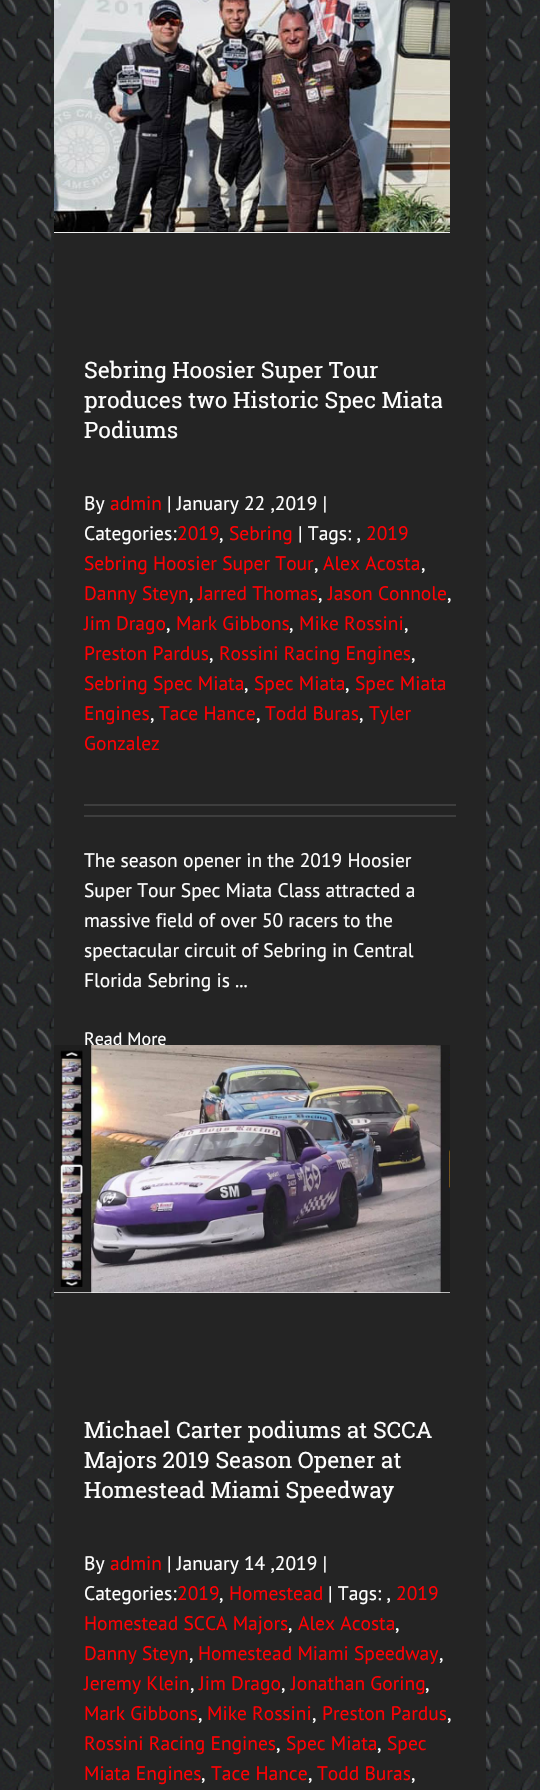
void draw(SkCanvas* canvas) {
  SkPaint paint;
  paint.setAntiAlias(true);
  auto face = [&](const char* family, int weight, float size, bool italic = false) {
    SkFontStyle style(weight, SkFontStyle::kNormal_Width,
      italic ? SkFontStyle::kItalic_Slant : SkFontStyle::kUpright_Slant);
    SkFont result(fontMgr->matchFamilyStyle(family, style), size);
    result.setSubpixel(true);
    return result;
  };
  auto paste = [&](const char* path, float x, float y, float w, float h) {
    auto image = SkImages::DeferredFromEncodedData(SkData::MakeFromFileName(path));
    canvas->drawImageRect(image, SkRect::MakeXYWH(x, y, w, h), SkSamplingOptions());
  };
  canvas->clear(0xffffffff);
  paste("img/1.png", 0, 0, 540, 1790);
  paint.setColor(0xff242424);
  canvas->drawRect(SkRect::MakeXYWH(54, 0, 432, 1790), paint);
  paint.setColor(0xfff0f0f0);
  canvas->drawRect(SkRect::MakeXYWH(54, 232, 396, 1), paint);
  paste("img/2.png", 54, 0, 396, 232);
  {
    const struct { float x, y, w, h; SkColor color; } items[] = {
      {84, 804, 372, 2, 0xff3e3e3e},
      {84, 815, 372, 2, 0xff3e3e3e},
      {54, 1292, 396, 1, 0xfff0f0f0},
    };
    for (auto [x, y, w, h, color] : items) {
      paint.setColor(color);
      canvas->drawRect(SkRect::MakeXYWH(x, y, w, h), paint);
    }
  }
  auto f0 = face("Roboto Slab", 400, 22.5f);
  paint.setColor(0xffffffff);
  {
    const struct { const char* s; float x, y; } items[] = {
      {"Sebring Hoosier Super Tour", 84, 378},
      {"produces two Historic Spec Miata", 84, 408},
      {"Podiums", 84, 438},
    };
    for (auto [s, x, y] : items) {
      canvas->drawString(s, x, y, f0, paint);
    }
  }
  auto f1 = face("PT Sans", 400, 19.5f);
  canvas->drawString("By", 84, 510, f1, paint);
  paint.setColor(0xfffe0003);
  canvas->drawString("admin", 110, 510, f1, paint);
  paint.setColor(0xffffffff);
  canvas->drawString("| January 22 ,2019 |", 167, 510, f1, paint);
  canvas->drawString("Categories:", 84, 540, f1, paint);
  paint.setColor(0xfffe0003);
  canvas->drawString("2019", 177, 540, f1, paint);
  paint.setColor(0xffffffff);
  canvas->drawString(",", 219, 540, f1, paint);
  paint.setColor(0xfffe0003);
  canvas->drawString("Sebring", 229, 540, f1, paint);
  paint.setColor(0xffffffff);
  canvas->drawString("| Tags: ,", 298, 540, f1, paint);
  paint.setColor(0xfffe0003);
  canvas->drawString("2019", 366, 540, f1, paint);
  canvas->drawString("Sebring Hoosier Super Tour", 84, 570, f1, paint);
  paint.setColor(0xffffffff);
  canvas->drawString(",", 314, 570, f1, paint);
  paint.setColor(0xfffe0003);
  canvas->drawString("Alex Acosta", 323, 570, f1, paint);
  paint.setColor(0xffffffff);
  canvas->drawString(",", 421, 570, f1, paint);
  paint.setColor(0xfffe0003);
  canvas->drawString("Danny Steyn", 84, 600, f1, paint);
  paint.setColor(0xffffffff);
  canvas->drawString(",", 189, 600, f1, paint);
  paint.setColor(0xfffe0003);
  canvas->drawString("Jarred Thomas", 198, 600, f1, paint);
  paint.setColor(0xffffffff);
  canvas->drawString(",", 318, 600, f1, paint);
  paint.setColor(0xfffe0003);
  canvas->drawString("Jason Connole", 328, 600, f1, paint);
  paint.setColor(0xffffffff);
  canvas->drawString(",", 447, 600, f1, paint);
  paint.setColor(0xfffe0003);
  canvas->drawString("Jim Drago", 84, 630, f1, paint);
  paint.setColor(0xffffffff);
  canvas->drawString(",", 166, 630, f1, paint);
  paint.setColor(0xfffe0003);
  canvas->drawString("Mark Gibbons", 176, 630, f1, paint);
  paint.setColor(0xffffffff);
  canvas->drawString(",", 289, 630, f1, paint);
  paint.setColor(0xfffe0003);
  canvas->drawString("Mike Rossini", 299, 630, f1, paint);
  paint.setColor(0xffffffff);
  canvas->drawString(",", 404, 630, f1, paint);
  paint.setColor(0xfffe0003);
  canvas->drawString("Preston Pardus", 84, 660, f1, paint);
  paint.setColor(0xffffffff);
  canvas->drawString(",", 209, 660, f1, paint);
  paint.setColor(0xfffe0003);
  canvas->drawString("Rossini Racing Engines", 219, 660, f1, paint);
  paint.setColor(0xffffffff);
  canvas->drawString(",", 411, 660, f1, paint);
  paint.setColor(0xfffe0003);
  canvas->drawString("Sebring Spec Miata", 84, 690, f1, paint);
  paint.setColor(0xffffffff);
  canvas->drawString(",", 244, 690, f1, paint);
  paint.setColor(0xfffe0003);
  canvas->drawString("Spec Miata", 254, 690, f1, paint);
  paint.setColor(0xffffffff);
  canvas->drawString(",", 345, 690, f1, paint);
  paint.setColor(0xfffe0003);
  canvas->drawString("Spec Miata", 355, 690, f1, paint);
  canvas->drawString("Engines", 84, 720, f1, paint);
  paint.setColor(0xffffffff);
  canvas->drawString(",", 150, 720, f1, paint);
  paint.setColor(0xfffe0003);
  canvas->drawString("Tace Hance", 159, 720, f1, paint);
  paint.setColor(0xffffffff);
  canvas->drawString(",", 256, 720, f1, paint);
  paint.setColor(0xfffe0003);
  canvas->drawString("Todd Buras", 265, 720, f1, paint);
  paint.setColor(0xffffffff);
  canvas->drawString(",", 359, 720, f1, paint);
  paint.setColor(0xfffe0003);
  canvas->drawString("Tyler", 369, 720, f1, paint);
  canvas->drawString("Gonzalez", 84, 750, f1, paint);
  paint.setColor(0xffffffff);
  {
    const struct { const char* s; float x, y; } items[] = {
      {"The season opener in the 2019 Hoosier", 84, 867},
      {"Super Tour Spec Miata Class attracted a", 84, 897},
      {"massive field of over 50 racers to the", 84, 927},
      {"spectacular circuit of Sebring in Central", 84, 957},
      {"Florida Sebring is ...", 84, 987},
    };
    for (auto [s, x, y] : items) {
      canvas->drawString(s, x, y, f1, paint);
    }
  }
  auto f2 = face("PT Sans", 400, 18);
  canvas->drawString("Read More", 84, 1045, f2, paint);
  paste("img/3.png", 54, 1045, 396, 248);
  {
    const struct { const char* s; float x, y; } items[] = {
      {"Michael Carter podiums at SCCA", 84, 1438},
      {"Majors 2019 Season Opener at", 84, 1468},
      {"Homestead Miami Speedway", 84, 1498},
    };
    for (auto [s, x, y] : items) {
      canvas->drawString(s, x, y, f0, paint);
    }
  }
  canvas->drawString("By", 84, 1570, f1, paint);
  paint.setColor(0xfffe0003);
  canvas->drawString("admin", 110, 1570, f1, paint);
  paint.setColor(0xffffffff);
  canvas->drawString("| January 14 ,2019 |", 167, 1570, f1, paint);
  canvas->drawString("Categories:", 84, 1600, f1, paint);
  paint.setColor(0xfffe0003);
  canvas->drawString("2019", 177, 1600, f1, paint);
  paint.setColor(0xffffffff);
  canvas->drawString(",", 219, 1600, f1, paint);
  paint.setColor(0xfffe0003);
  canvas->drawString("Homestead", 229, 1600, f1, paint);
  paint.setColor(0xffffffff);
  canvas->drawString("| Tags: ,", 328, 1600, f1, paint);
  paint.setColor(0xfffe0003);
  canvas->drawString("2019", 396, 1600, f1, paint);
  canvas->drawString("Homestead SCCA Majors", 84, 1630, f1, paint);
  paint.setColor(0xffffffff);
  canvas->drawString(",", 288, 1630, f1, paint);
  paint.setColor(0xfffe0003);
  canvas->drawString("Alex Acosta", 298, 1630, f1, paint);
  paint.setColor(0xffffffff);
  canvas->drawString(",", 395, 1630, f1, paint);
  paint.setColor(0xfffe0003);
  canvas->drawString("Danny Steyn", 84, 1660, f1, paint);
  paint.setColor(0xffffffff);
  canvas->drawString(",", 189, 1660, f1, paint);
  paint.setColor(0xfffe0003);
  canvas->drawString("Homestead Miami Speedway", 198, 1660, f1, paint);
  paint.setColor(0xffffffff);
  canvas->drawString(",", 439, 1660, f1, paint);
  paint.setColor(0xfffe0003);
  canvas->drawString("Jeremy Klein", 84, 1690, f1, paint);
  paint.setColor(0xffffffff);
  canvas->drawString(",", 190, 1690, f1, paint);
  paint.setColor(0xfffe0003);
  canvas->drawString("Jim Drago", 199, 1690, f1, paint);
  paint.setColor(0xffffffff);
  canvas->drawString(",", 281, 1690, f1, paint);
  paint.setColor(0xfffe0003);
  canvas->drawString("Jonathan Goring", 291, 1690, f1, paint);
  paint.setColor(0xffffffff);
  canvas->drawString(",", 425, 1690, f1, paint);
  paint.setColor(0xfffe0003);
  canvas->drawString("Mark Gibbons", 84, 1720, f1, paint);
  paint.setColor(0xffffffff);
  canvas->drawString(",", 198, 1720, f1, paint);
  paint.setColor(0xfffe0003);
  canvas->drawString("Mike Rossini", 207, 1720, f1, paint);
  paint.setColor(0xffffffff);
  canvas->drawString(",", 312, 1720, f1, paint);
  paint.setColor(0xfffe0003);
  canvas->drawString("Preston Pardus", 322, 1720, f1, paint);
  paint.setColor(0xffffffff);
  canvas->drawString(",", 447, 1720, f1, paint);
  paint.setColor(0xfffe0003);
  canvas->drawString("Rossini Racing Engines", 84, 1750, f1, paint);
  paint.setColor(0xffffffff);
  canvas->drawString(",", 276, 1750, f1, paint);
  paint.setColor(0xfffe0003);
  canvas->drawString("Spec Miata", 286, 1750, f1, paint);
  paint.setColor(0xffffffff);
  canvas->drawString(",", 377, 1750, f1, paint);
  paint.setColor(0xfffe0003);
  canvas->drawString("Spec", 387, 1750, f1, paint);
  canvas->drawString("Miata Engines", 84, 1780, f1, paint);
  paint.setColor(0xffffffff);
  canvas->drawString(",", 201, 1780, f1, paint);
  paint.setColor(0xfffe0003);
  canvas->drawString("Tace Hance", 211, 1780, f1, paint);
  paint.setColor(0xffffffff);
  canvas->drawString(",", 308, 1780, f1, paint);
  paint.setColor(0xfffe0003);
  canvas->drawString("Todd Buras", 317, 1780, f1, paint);
  paint.setColor(0xffffffff);
  canvas->drawString(",", 411, 1780, f1, paint);
}
